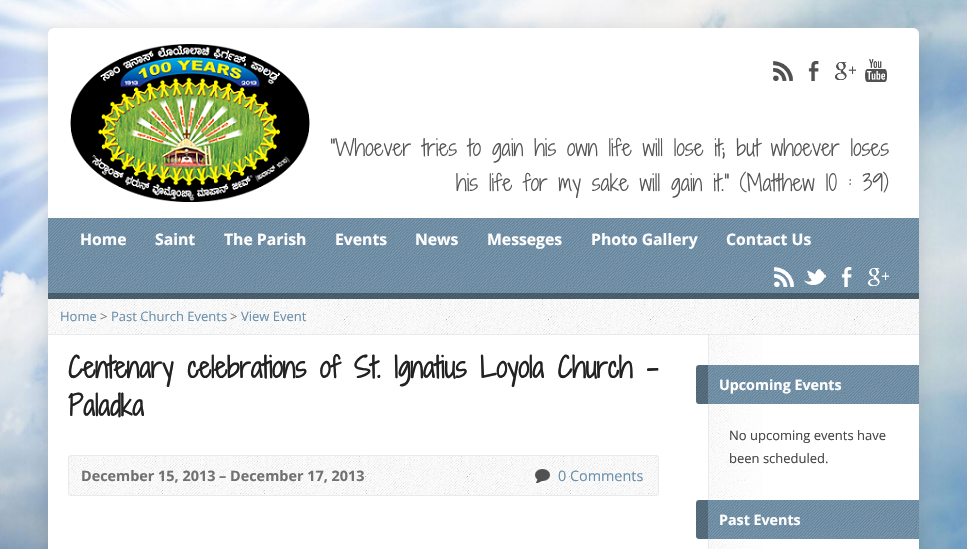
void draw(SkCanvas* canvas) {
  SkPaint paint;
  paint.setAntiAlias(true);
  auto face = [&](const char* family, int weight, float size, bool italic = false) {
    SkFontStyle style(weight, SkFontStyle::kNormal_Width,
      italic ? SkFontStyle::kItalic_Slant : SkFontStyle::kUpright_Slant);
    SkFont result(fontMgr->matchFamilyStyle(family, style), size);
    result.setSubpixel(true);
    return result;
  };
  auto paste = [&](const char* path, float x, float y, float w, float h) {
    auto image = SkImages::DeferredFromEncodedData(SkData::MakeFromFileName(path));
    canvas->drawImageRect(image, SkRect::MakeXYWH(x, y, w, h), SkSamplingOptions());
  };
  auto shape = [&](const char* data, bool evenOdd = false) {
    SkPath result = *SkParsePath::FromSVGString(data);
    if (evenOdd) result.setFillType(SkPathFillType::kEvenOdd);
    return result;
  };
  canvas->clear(0xffffffff);
  paste("img/1.png", 0, 0, 967, 549);
  paint.setColor(0x1f000000);
  paint.setMaskFilter(SkMaskFilter::MakeBlur(kNormal_SkBlurStyle, 10));
  canvas->drawRoundRect(SkRect::MakeXYWH(48, 28, 871, 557), 6, 6, paint);
  paint.setMaskFilter(nullptr);
  paint.setColor(0xffffffff);
  canvas->drawRoundRect(SkRect::MakeXYWH(48, 28, 871, 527), 6, 6, paint);
  paste("img/2.png", 70, 44, 240, 158);
  paste("img/3.png", 773, 61, 20, 20);
  paste("img/4.png", 808, 61, 11, 20);
  paste("img/5.png", 835, 62, 21, 18);
  paste("img/6.png", 865, 59, 22, 23);
  paint.setColor(0xff6a8fab);
  canvas->drawRect(SkRect::MakeXYWH(48, 218, 871, 81), paint);
  paste("img/7.png", 48, 218, 871, 81);
  paste("img/8.png", 774, 267, 20, 20);
  paste("img/9.png", 804, 269, 22, 16);
  paste("img/10.png", 841, 267, 11, 20);
  paste("img/11.png", 868, 268, 21, 18);
  paint.setColor(0x59000000);
  canvas->drawRect(SkRect::MakeXYWH(48, 293, 871, 6), paint);
  paste("img/12.png", 48, 299, 871, 35);
  paint.setColor(0xffeaeaea);
  canvas->drawRect(SkRect::MakeXYWH(48, 334, 871, 1), paint);
  paste("img/13.png", 68, 455, 591, 41);
  paint.setStroke(true);
  paint.setStrokeWidth(1);
  canvas->drawRoundRect(SkRect::MakeXYWH(68.5f, 455.5f, 590, 40), 2.5f, 2.5f, paint);
  paste("img/14.png", 535, 469, 15, 14);
  paste("img/15.png", 709, 335, 54, 214);
  paint.setStroke(false);
  canvas->drawRect(SkRect::MakeXYWH(708, 335, 1, 214), paint);
  paint.setColor(0xff6a8fab);
  canvas->drawPath(shape("M699 365H919V404H699C697.5 404 696 402.5 696 401V368C696 366.5 697.5 365 699 365Z"), paint);
  paste("img/16.png", 696, 365, 223, 39);
  canvas->drawPath(shape("M699 500H919V539H699C697.5 539 696 537.5 696 536V503C696 501.5 697.5 500 699 500Z"), paint);
  paste("img/16.png", 696, 500, 223, 39);
  auto f0 = face("Shadows Into Light Two", 300, 21.6f);
  paint.setColor(0xff555555);
  canvas->drawString("\"Whoever tries to gain his own life will lose it; but whoever loses", 330, 156, f0, paint);
  canvas->drawString("his life for my sake will gain it.\" (Matthew 10 : 39)", 456, 191, f0, paint);
  auto f1 = face("Open Sans", 700, 15.75f);
  paint.setColor(0xffffffff);
  {
    const struct { const char* s; float x, y; } items[] = {
      {"Home", 80, 245},
      {"Saint", 155, 245},
      {"The Parish", 224, 245},
      {"Events", 335, 245},
      {"News", 415, 245},
      {"Messeges", 487, 245},
      {"Photo Gallery", 591, 245},
      {"Contact Us", 726, 245},
    };
    for (auto [s, x, y] : items) {
      canvas->drawString(s, x, y, f1, paint);
    }
  }
  auto f2 = face("Open Sans", 400, 13);
  paint.setColor(0xff6a8fab);
  canvas->drawString("Home", 60, 321, f2, paint);
  paint.setColor(0xff777777);
  canvas->drawString(">", 100, 321, f2, paint);
  paint.setColor(0xff6a8fab);
  canvas->drawString("Past Church Events", 111, 321, f2, paint);
  paint.setColor(0xff777777);
  canvas->drawString(">", 230, 321, f2, paint);
  paint.setColor(0xff6a8fab);
  canvas->drawString("View Event", 241, 321, f2, paint);
  auto f3 = face("Shadows Into Light Two", 700, 27.4f);
  paint.setColor(0xff222222);
  canvas->drawString("Centenary celebrations of St. Ignatius Loyola Church –", 68, 378, f3, paint);
  canvas->drawString("Paladka", 68, 416, f3, paint);
  auto f4 = face("Open Sans", 700, 14.4f);
  paint.setColor(0xff717171);
  canvas->drawString("December 15, 2013 – December 17, 2013", 81, 481, f4, paint);
  auto f5 = face("Open Sans", 400, 14.4f);
  paint.setColor(0xff6a8fab);
  canvas->drawString("0 Comments", 558, 481, f5, paint);
  auto f6 = face("Open Sans", 700, 14.25f);
  paint.setColor(0xffffffff);
  canvas->drawString("Upcoming Events", 719, 390, f6, paint);
  paint.setColor(0xff444444);
  canvas->drawString("No upcoming events have", 729, 440, f2, paint);
  canvas->drawString("been scheduled.", 729, 463, f2, paint);
  paint.setColor(0xffffffff);
  canvas->drawString("Past Events", 719, 525, f6, paint);
}
